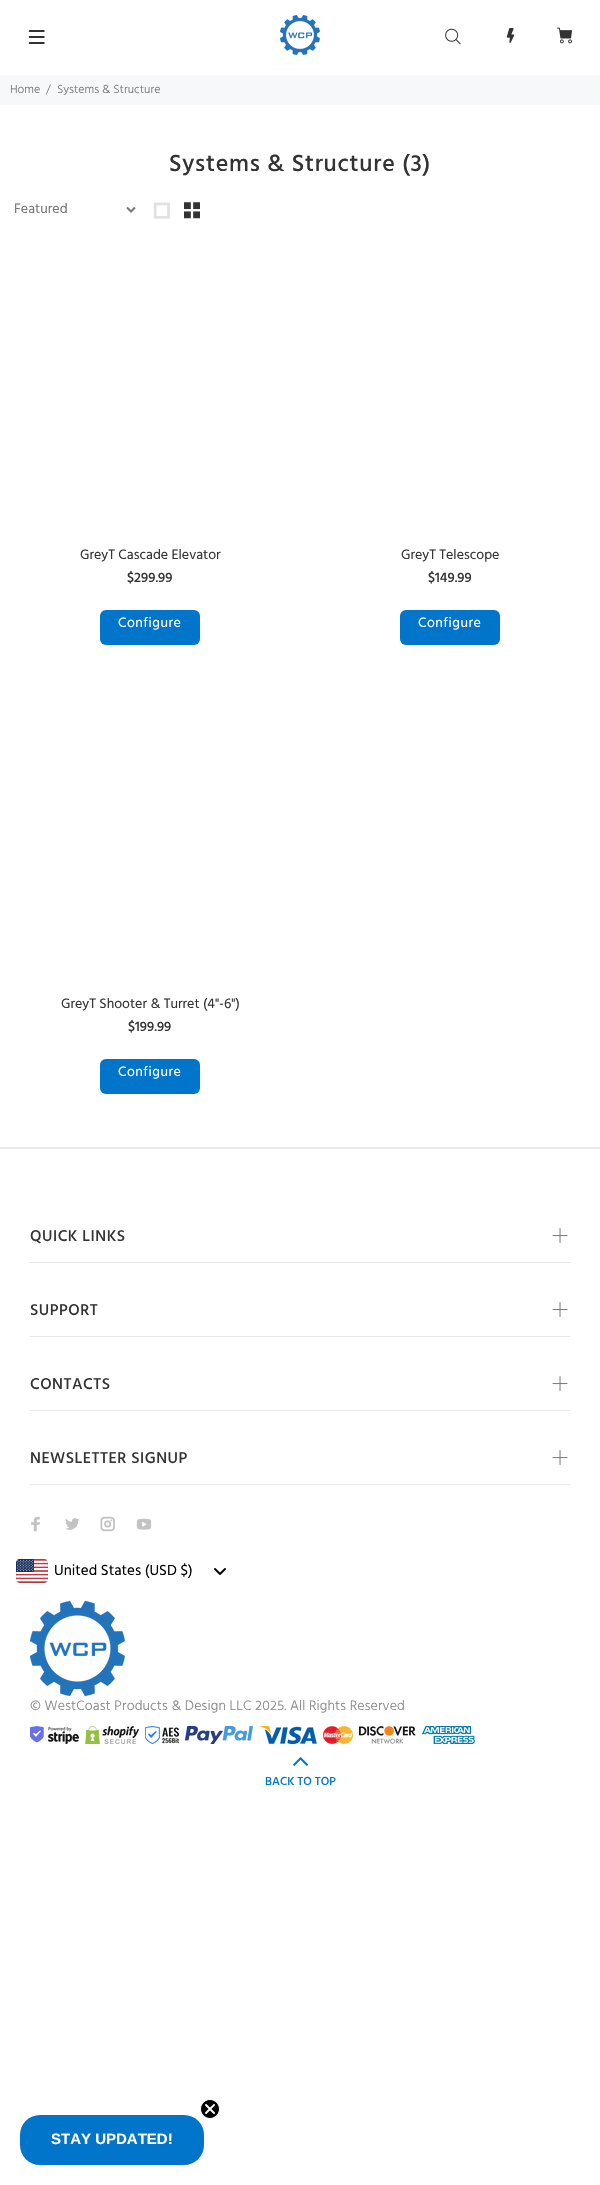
void draw(SkCanvas* canvas) {
  SkPaint paint;
  paint.setAntiAlias(true);
  auto face = [&](const char* family, int weight, float size, bool italic = false) {
    SkFontStyle style(weight, SkFontStyle::kNormal_Width,
      italic ? SkFontStyle::kItalic_Slant : SkFontStyle::kUpright_Slant);
    SkFont result(fontMgr->matchFamilyStyle(family, style), size);
    result.setSubpixel(true);
    return result;
  };
  auto writeSpaced = [&](const char* s, float x, float y, const SkFont& font, const SkPaint& ink, float letter, float word) {
    std::vector<SkGlyphID> glyphs(font.countText(s, strlen(s), SkTextEncoding::kUTF8));
    std::vector<float> xs(glyphs.size());
    font.textToGlyphs(s, strlen(s), SkTextEncoding::kUTF8, glyphs);
    font.getXPos(glyphs, xs, x);
    float extra = 0;
    for (size_t i = 0; i < glyphs.size(); i++) {
      xs[i] += extra;
      extra += letter + word * (glyphs[i] == font.unicharToGlyph(' '));
    }
    canvas->drawTextBlob(SkTextBlob::MakeFromPosHGlyphs(glyphs, xs, y, font), 0, 0, ink);
  };
  auto paste = [&](const char* path, float x, float y, float w, float h) {
    auto image = SkImages::DeferredFromEncodedData(SkData::MakeFromFileName(path));
    canvas->drawImageRect(image, SkRect::MakeXYWH(x, y, w, h), SkSamplingOptions());
  };
  auto shape = [&](const char* data, bool evenOdd = false) {
    SkPath result = *SkParsePath::FromSVGString(data);
    if (evenOdd) result.setFillType(SkPathFillType::kEvenOdd);
    return result;
  };
  canvas->clear(0xffffffff);
  paste("img/1.png", 28, 30, 17, 14);
  paste("img/2.png", 280, 15, 40, 40);
  paste("img/3.png", 445, 28, 16, 17);
  paste("img/4.png", 506, 28, 9, 15);
  paste("img/5.png", 557, 27, 15, 17);
  paint.setColor(0xfff7f8fa);
  canvas->drawRect(SkRect::MakeXYWH(0, 75, 600, 30), paint);
  paint.setStroke(true);
  paint.setStrokeWidth(2);
  paint.setColor(0xff777777);
  canvas->drawPath(shape("M127 207.5L131 211.5L135 207.5"), paint);
  paste("img/6.png", 153, 202, 17, 17);
  paste("img/7.png", 184, 202, 16, 17);
  paint.setStroke(false);
  paint.setColor(0xff0075c9);
  canvas->drawRoundRect(SkRect::MakeXYWH(100, 610, 100, 35), 6, 6, paint);
  canvas->drawRoundRect(SkRect::MakeXYWH(400, 610, 100, 35), 6, 6, paint);
  canvas->drawRoundRect(SkRect::MakeXYWH(100, 1059, 100, 35), 6, 6, paint);
  paint.setColor(0xffe9e7e7);
  canvas->drawRect(SkRect::MakeXYWH(0, 1147, 600, 2), paint);
  canvas->drawRect(SkRect::MakeXYWH(30, 1262, 540, 1), paint);
  paste("img/8.png", 552, 1228, 16, 15);
  canvas->drawRect(SkRect::MakeXYWH(30, 1336, 540, 1), paint);
  paste("img/8.png", 552, 1302, 16, 15);
  canvas->drawRect(SkRect::MakeXYWH(30, 1410, 540, 1), paint);
  paste("img/8.png", 552, 1376, 16, 15);
  canvas->drawRect(SkRect::MakeXYWH(30, 1484, 540, 1), paint);
  paste("img/8.png", 552, 1450, 16, 15);
  paste("img/9.png", 31, 1516, 9, 16);
  paste("img/10.png", 65, 1518, 15, 12);
  paste("img/11.png", 100, 1516, 15, 16);
  paste("img/12.png", 136, 1518, 16, 12);
  paste("img/13.png", 214, 1568, 12, 7);
  paste("img/14.png", 16, 1559, 32, 24);
  paint.setStroke(true);
  paint.setStrokeWidth(1);
  paint.setColor(0x0d000000);
  canvas->drawRect(SkRect::MakeXYWH(16.5f, 1559.5f, 31, 23), paint);
  paste("img/15.png", 30, 1601, 95, 95);
  paste("img/16.png", 30, 1726, 49, 18);
  paste("img/17.png", 85, 1726, 54, 18);
  paste("img/18.png", 145, 1726, 34, 18);
  paste("img/19.png", 185, 1726, 68, 18);
  paste("img/20.png", 259, 1726, 58, 18);
  paste("img/21.png", 323, 1726, 30, 18);
  paste("img/22.png", 359, 1726, 57, 18);
  paste("img/23.png", 422, 1726, 53, 18);
  paste("img/24.png", 293, 1757, 16, 9);
  paint.setStroke(false);
  paint.setColor(0xff0075c9);
  canvas->drawRoundRect(SkRect::MakeXYWH(20, 2115, 184, 50), 20, 20, paint);
  paste("img/25.png", 200, 2099, 20, 20);
  auto f0 = face("Hind", 300, 12);
  paint.setColor(0xff777777);
  {
    const struct { const char* s; float x, y; } items[] = {
      {"Home", 10, 93},
      {"/", 46, 93},
      {"Systems & Structure", 57, 93},
    };
    for (auto [s, x, y] : items) {
      canvas->drawString(s, x, y, f0, paint);
    }
  }
  auto f1 = face("Hind", 500, 24);
  paint.setColor(0xff333333);
  writeSpaced("Systems & Structure (3)", 169, 171, f1, paint, 0.75f, 0);
  auto f2 = face("Hind", 400, 14);
  paint.setColor(0xff777777);
  canvas->drawString("Featured", 14, 213, f2, paint);
  paint.setColor(0xff333333);
  canvas->drawString("GreyT Cascade Elevator", 80, 559, f2, paint);
  auto f3 = face("Hind", 500, 14);
  canvas->drawString("$299.99", 127, 582, f3, paint);
  paint.setColor(0xffffffff);
  writeSpaced("Configure", 118, 627, f2, paint, 0.5f, 0);
  paint.setColor(0xff333333);
  canvas->drawString("GreyT Telescope", 401, 559, f2, paint);
  canvas->drawString("$149.99", 428, 582, f3, paint);
  paint.setColor(0xffffffff);
  writeSpaced("Configure", 418, 627, f2, paint, 0.5f, 0);
  paint.setColor(0xff333333);
  canvas->drawString("GreyT Shooter & Turret (4\"-6\")", 61, 1008, f2, paint);
  canvas->drawString("$199.99", 128, 1031, f3, paint);
  paint.setColor(0xffffffff);
  writeSpaced("Configure", 118, 1076, f2, paint, 0.5f, 0);
  auto f4 = face("Hind", 500, 16);
  paint.setColor(0xff333333);
  {
    const struct { const char* s; float x, y; } items[] = {
      {"QUICK LINKS", 30, 1241},
      {"SUPPORT", 30, 1315},
      {"CONTACTS", 30, 1389},
      {"NEWSLETTER SIGNUP", 30, 1463},
    };
    for (auto [s, x, y] : items) {
      writeSpaced(s, x, y, f4, paint, 0.5f, 0);
    }
  }
  auto f5 = face("Hind", 400, 15);
  paint.setColor(0xff000000);
  canvas->drawString("United States (USD $)", 54, 1575, f5, paint);
  auto f6 = face("Hind", 300, 14);
  paint.setColor(0xff888888);
  writeSpaced("© WestCoast Products & Design LLC 2025. All Rights Reserved", 30, 1710, f6, paint, 0.15f, 0);
  auto f7 = face("Hind", 500, 12);
  paint.setColor(0xff0075c9);
  canvas->drawString("BACK TO TOP", 265, 1785, f7, paint);
  auto f8 = face("Liberation Sans", 700, 15);
  paint.setColor(0xffffffff);
  canvas->drawString("STAY UPDATED!", 51, 2144, f8, paint);
}
